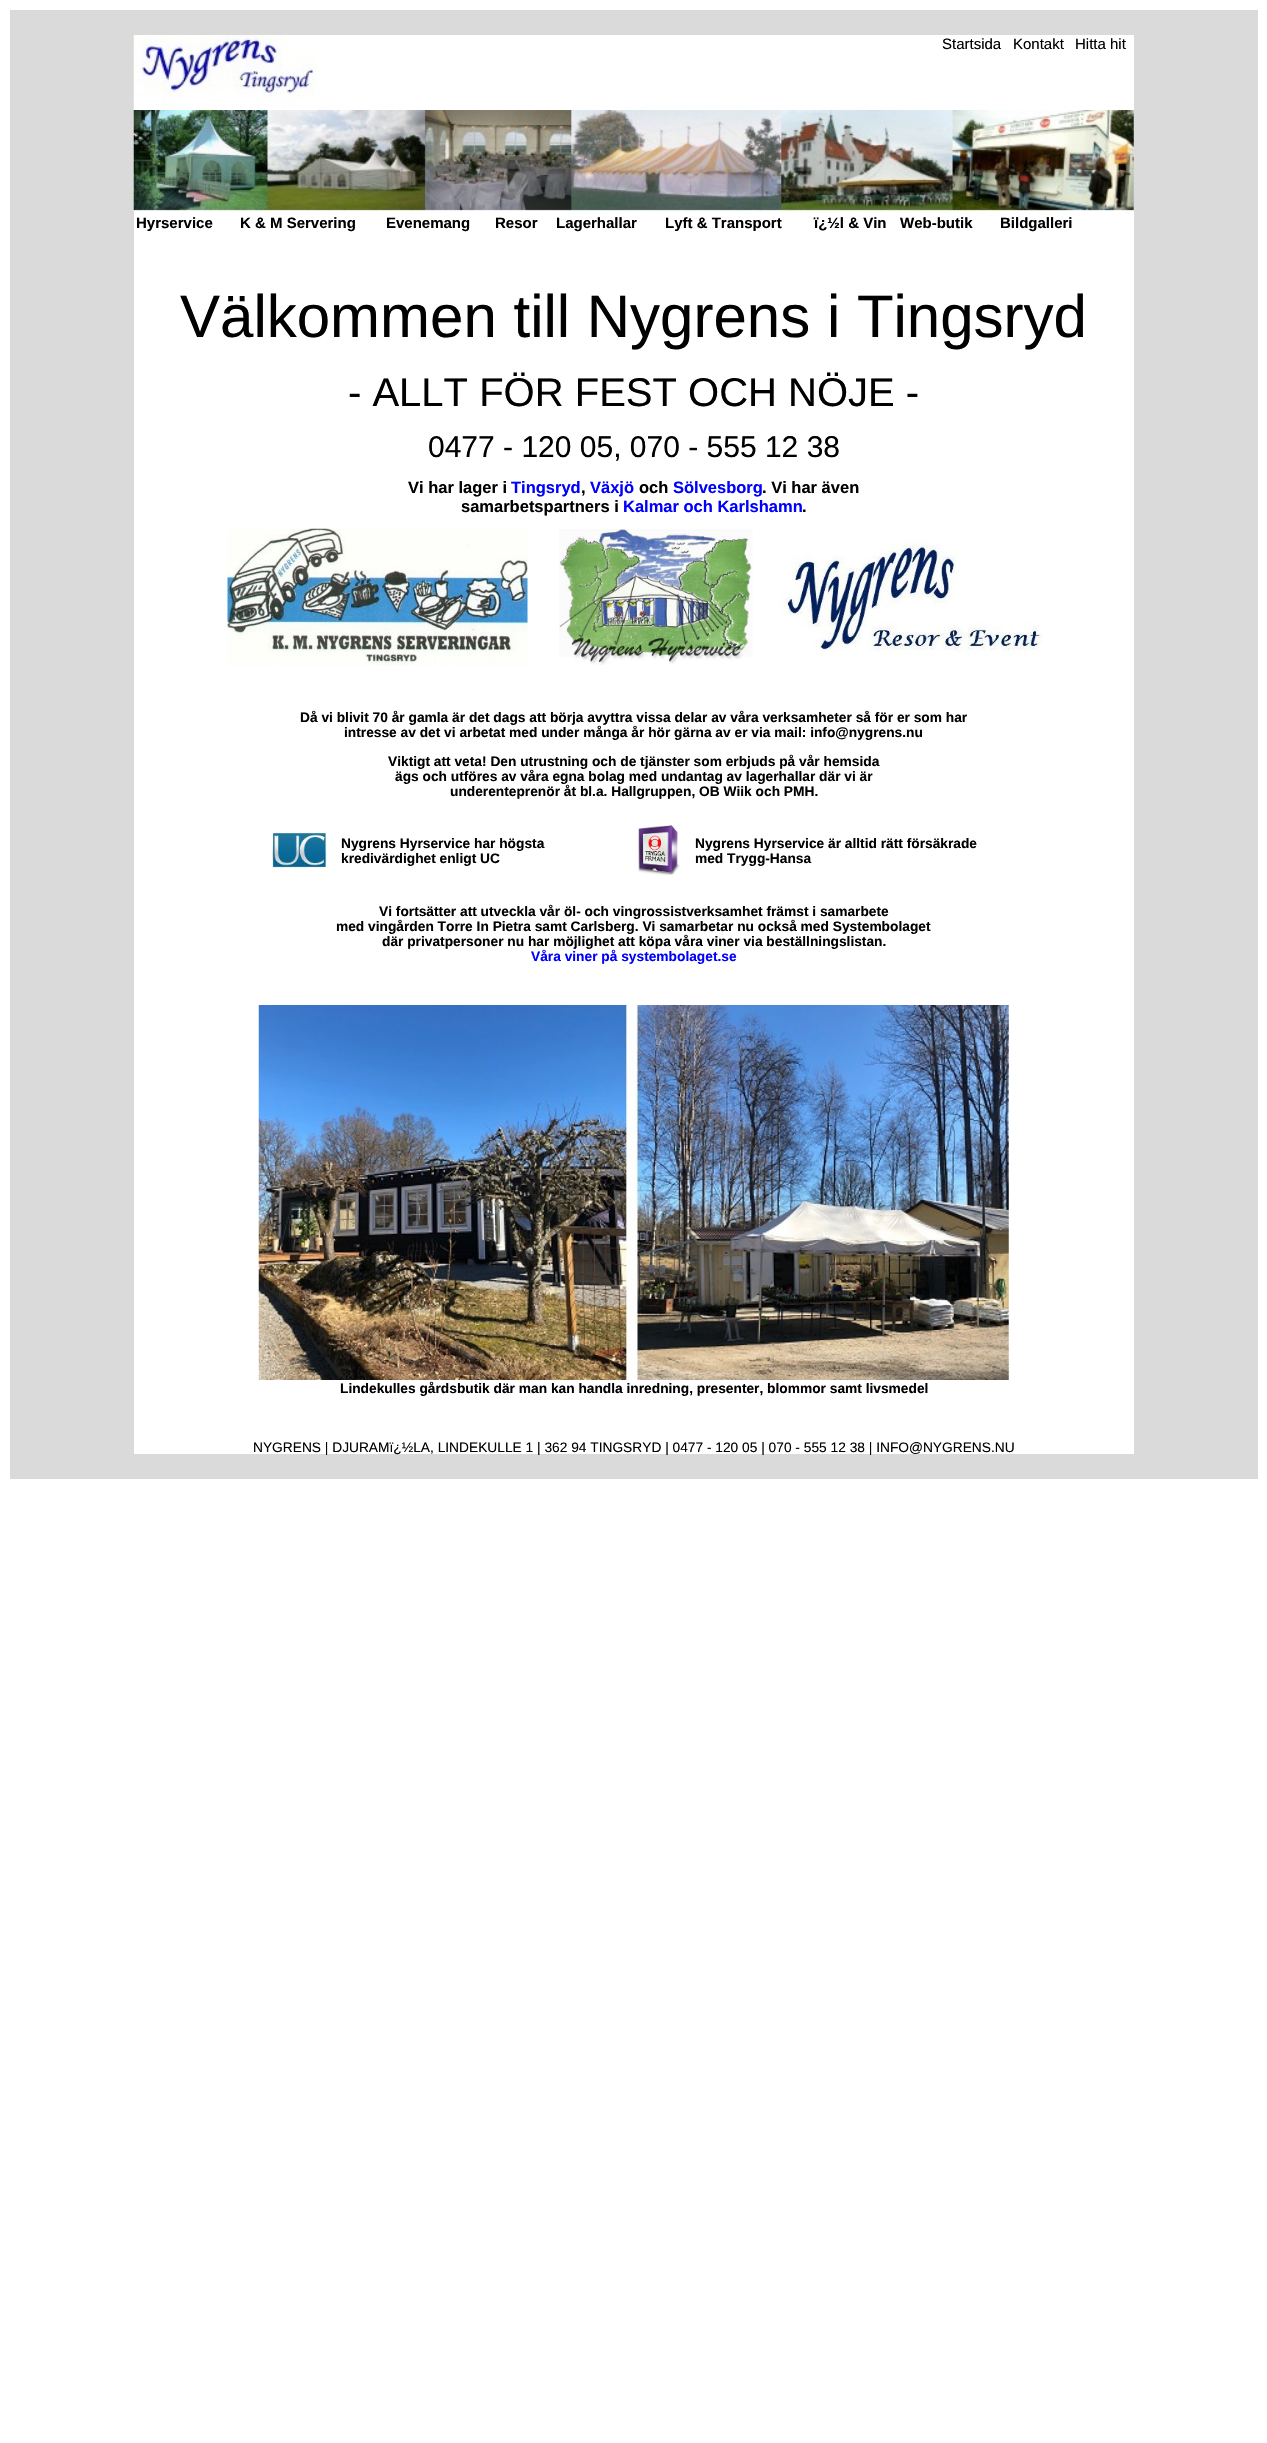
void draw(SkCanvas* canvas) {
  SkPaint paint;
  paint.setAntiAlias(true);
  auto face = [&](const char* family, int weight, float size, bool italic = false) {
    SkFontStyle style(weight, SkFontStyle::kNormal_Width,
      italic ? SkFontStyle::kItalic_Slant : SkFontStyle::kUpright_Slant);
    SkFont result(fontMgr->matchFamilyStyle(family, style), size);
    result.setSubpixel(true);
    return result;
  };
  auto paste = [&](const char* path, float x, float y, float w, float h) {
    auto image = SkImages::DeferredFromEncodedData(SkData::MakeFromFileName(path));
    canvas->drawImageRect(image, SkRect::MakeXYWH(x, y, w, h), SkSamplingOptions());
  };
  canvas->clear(0xffffffff);
  paint.setColor(0xffdadada);
  canvas->drawRect(SkRect::MakeXYWH(10, 10, 1248, 1469), paint);
  paint.setColor(0xffffffff);
  canvas->drawRect(SkRect::MakeXYWH(318, 35, 816, 75), paint);
  paste("img/1.png", 133, 35, 185, 75);
  canvas->drawRect(SkRect::MakeXYWH(134, 211, 1000, 1243), paint);
  paste("img/2.png", 133, 110, 1001, 102);
  paste("img/3.png", 227, 528, 301, 138);
  paste("img/4.png", 559, 529, 194, 136);
  paste("img/5.png", 780, 539, 263, 117);
  paste("img/6.png", 272, 832, 55, 36);
  paste("img/7.png", 638, 825, 42, 50);
  paste("img/8.png", 258, 1005, 751, 375);
  auto f0 = face("Liberation Sans", 400, 15);
  paint.setColor(0xff000000);
  {
    const struct { const char* s; float x, y; } items[] = {
      {"Startsida", 942, 49},
      {"Kontakt", 1013, 49},
      {"Hitta hit", 1075, 49},
    };
    for (auto [s, x, y] : items) {
      canvas->drawString(s, x, y, f0, paint);
    }
  }
  auto f1 = face("Liberation Sans", 700, 15);
  {
    const struct { const char* s; float x, y; } items[] = {
      {"Hyrservice", 136, 228},
      {"K & M Servering", 240, 228},
      {"Evenemang", 386, 228},
      {"Resor", 495, 228},
      {"Lagerhallar", 556, 228},
      {"Lyft & Transport", 665, 228},
      {"ï¿½l & Vin", 814, 228},
      {"Web-butik", 900, 228},
      {"Bildgalleri", 1000, 228},
    };
    for (auto [s, x, y] : items) {
      canvas->drawString(s, x, y, f1, paint);
    }
  }
  auto f2 = face("Liberation Sans", 400, 60);
  canvas->drawString("Välkommen till Nygrens i Tingsryd", 180, 337, f2, paint);
  auto f3 = face("Liberation Sans", 400, 40);
  canvas->drawString("- ALLT FÖR FEST OCH NÖJE -", 348, 406, f3, paint);
  auto f4 = face("Liberation Sans", 400, 30);
  canvas->drawString("0477 - 120 05, 070 - 555 12 38", 428, 457, f4, paint);
  auto f5 = face("Liberation Sans", 700, 16.5f);
  canvas->drawString("Vi har lager i", 408, 493, f5, paint);
  paint.setColor(0xff0000ff);
  canvas->drawString("Tingsryd", 511, 493, f5, paint);
  paint.setColor(0xff000000);
  canvas->drawString(",", 581, 493, f5, paint);
  paint.setColor(0xff0000ff);
  canvas->drawString("Växjö", 590, 493, f5, paint);
  paint.setColor(0xff000000);
  canvas->drawString("och", 639, 493, f5, paint);
  paint.setColor(0xff0000ff);
  canvas->drawString("Sölvesborg", 673, 493, f5, paint);
  paint.setColor(0xff000000);
  canvas->drawString(". Vi har även", 762, 493, f5, paint);
  canvas->drawString("samarbetspartners i", 461, 512, f5, paint);
  paint.setColor(0xff0000ff);
  canvas->drawString("Kalmar och Karlshamn", 623, 512, f5, paint);
  paint.setColor(0xff000000);
  canvas->drawString(".", 802, 512, f5, paint);
  auto f6 = face("Liberation Sans", 700, 13.75f);
  {
    const struct { const char* s; float x, y; } items[] = {
      {"Då vi blivit 70 år gamla är det dags att börja avyttra vissa delar av våra verksamheter så för er som har", 300, 722},
      {"intresse av det vi arbetat med under många år hör gärna av er via mail: info@nygrens.nu", 344, 737},
      {"Viktigt att veta! Den utrustning och de tjänster som erbjuds på vår hemsida", 388, 766},
      {"ägs och utföres av våra egna bolag med undantag av lagerhallar där vi är", 395, 781},
      {"underenteprenör åt bl.a. Hallgruppen, OB Wiik och PMH.", 450, 796},
      {"Nygrens Hyrservice har högsta", 341, 848},
      {"kredivärdighet enligt UC", 341, 863},
      {"Nygrens Hyrservice är alltid rätt försäkrade", 695, 848},
      {"med Trygg-Hansa", 695, 863},
      {"Vi fortsätter att utveckla vår öl- och vingrossistverksamhet främst i samarbete", 379, 916},
      {"med vingården Torre In Pietra samt Carlsberg. Vi samarbetar nu också med Systembolaget", 336, 931},
      {"där privatpersoner nu har möjlighet att köpa våra viner via beställningslistan.", 382, 946},
    };
    for (auto [s, x, y] : items) {
      canvas->drawString(s, x, y, f6, paint);
    }
  }
  paint.setColor(0xff0000ff);
  canvas->drawString("Våra viner på systembolaget.se", 531, 961, f6, paint);
  paint.setColor(0xff000000);
  canvas->drawString("Lindekulles gårdsbutik där man kan handla inredning, presenter, blommor samt livsmedel", 340, 1393, f6, paint);
  auto f7 = face("Liberation Sans", 400, 13.75f);
  canvas->drawString("NYGRENS | DJURAMï¿½LA, LINDEKULLE 1 | 362 94 TINGSRYD | 0477 - 120 05 | 070 - 555 12 38 | INFO@NYGRENS.NU", 253, 1452, f7, paint);
}
